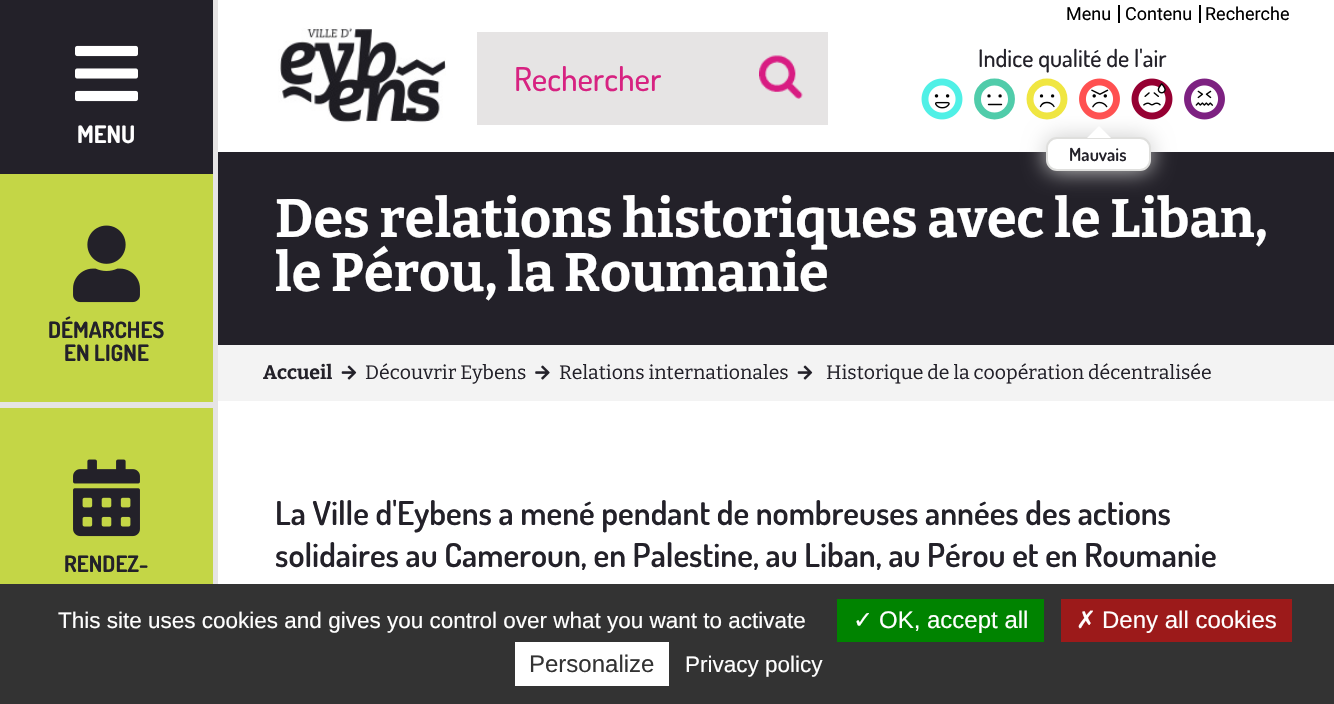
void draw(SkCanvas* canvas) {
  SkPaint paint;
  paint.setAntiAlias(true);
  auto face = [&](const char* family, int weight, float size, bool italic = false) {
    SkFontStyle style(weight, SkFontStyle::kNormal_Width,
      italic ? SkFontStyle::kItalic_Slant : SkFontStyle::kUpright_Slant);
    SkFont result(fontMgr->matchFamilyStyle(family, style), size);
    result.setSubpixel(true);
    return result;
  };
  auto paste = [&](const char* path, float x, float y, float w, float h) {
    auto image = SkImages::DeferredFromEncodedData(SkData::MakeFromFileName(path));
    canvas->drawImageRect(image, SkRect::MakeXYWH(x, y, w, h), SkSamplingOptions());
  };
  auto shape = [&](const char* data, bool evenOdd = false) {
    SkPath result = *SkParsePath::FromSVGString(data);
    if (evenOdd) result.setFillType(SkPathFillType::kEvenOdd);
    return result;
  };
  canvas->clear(0xffffffff);
  paint.setColor(0xff000000);
  canvas->drawRect(SkRect::MakeXYWH(1118, 5, 2, 18), paint);
  canvas->drawRect(SkRect::MakeXYWH(1199, 5, 2, 18), paint);
  paste("img/1.png", 278, 27, 168, 96);
  paint.setColor(0xffe6e4e4);
  canvas->drawRect(SkRect::MakeXYWH(477, 32, 351, 93), paint);
  paste("img/2.png", 759, 55, 44, 44);
  paste("img/3.png", 921, 78, 42, 42);
  paint.setStroke(true);
  paint.setStrokeWidth(6.9f);
  paint.setColor(0xff50ccaa);
  canvas->drawCircle(994.5f, 99, 17, paint);
  paint.setStroke(false);
  paint.setColor(0xff000000);
  canvas->drawCircle(989, 95.9f, 1.7f, paint);
  canvas->drawCircle(1000.1f, 95.9f, 1.7f, paint);
  paint.setStroke(true);
  paint.setStrokeWidth(1.4f);
  paint.setStrokeCap(SkPaint::kRound_Cap);
  paint.setStrokeJoin(SkPaint::kRound_Join);
  canvas->drawPath(shape("M988.5 104.5H1001.5"), paint);
  paint.setStrokeWidth(6.9f);
  paint.setStrokeCap(SkPaint::kButt_Cap);
  paint.setStrokeJoin(SkPaint::kMiter_Join);
  paint.setColor(0xfff0e641);
  canvas->drawCircle(1047, 99, 17, paint);
  paint.setStroke(false);
  paint.setColor(0xff000000);
  canvas->drawCircle(1041.5f, 95.9f, 1.7f, paint);
  canvas->drawCircle(1052.6f, 95.9f, 1.7f, paint);
  paint.setStroke(true);
  paint.setStrokeWidth(1.4f);
  paint.setStrokeCap(SkPaint::kRound_Cap);
  paint.setStrokeJoin(SkPaint::kRound_Join);
  canvas->drawPath(shape("M1040.5 106.5C1043 101 1051 101.5 1054 106.5"), paint);
  paste("img/4.png", 1079, 78, 41, 42);
  paste("img/5.png", 1131, 78, 42, 42);
  paste("img/6.png", 1184, 78, 41, 42);
  paint.setStroke(false);
  paint.setColor(0xff232129);
  canvas->drawRect(SkRect::MakeXYWH(218, 152, 1116, 193), paint);
  paint.setColor(0xffcccccc);
  paint.setMaskFilter(SkMaskFilter::MakeBlur(kNormal_SkBlurStyle, 11));
  canvas->drawRoundRect(SkRect::MakeXYWH(1046, 137, 105, 34), 11, 11, paint);
  paint.setMaskFilter(nullptr);
  paint.setColor(0xffffffff);
  canvas->drawRoundRect(SkRect::MakeXYWH(1047, 138, 103, 32), 10, 10, paint);
  paint.setStroke(true);
  paint.setStrokeWidth(2);
  paint.setStrokeCap(SkPaint::kButt_Cap);
  paint.setStrokeJoin(SkPaint::kMiter_Join);
  paint.setColor(0xffdfdfdd);
  canvas->drawRoundRect(SkRect::MakeXYWH(1047, 138, 103, 32), 10, 10, paint);
  paint.setStroke(false);
  paint.setColor(0xffffffff);
  canvas->drawPath(shape("M1111 138H1087L1099 126Z"), paint);
  paint.setColor(0xffe6e4e4);
  canvas->drawRect(SkRect::MakeXYWH(0, 0, 218, 584), paint);
  paint.setColor(0xff232129);
  canvas->drawRect(SkRect::MakeXYWH(0, 0, 213, 174), paint);
  paste("img/7.png", 75, 45, 63, 57);
  paint.setColor(0xffc4d646);
  canvas->drawRect(SkRect::MakeXYWH(0, 174, 213, 228), paint);
  paste("img/8.png", 73, 225, 67, 78);
  canvas->drawRect(SkRect::MakeXYWH(0, 408, 213, 176), paint);
  paste("img/9.png", 73, 459, 67, 78);
  paint.setColor(0xfff3f3f3);
  canvas->drawRect(SkRect::MakeXYWH(218, 345, 1116, 56), paint);
  paste("img/10.png", 341, 365, 16, 15);
  paste("img/11.png", 535, 365, 15, 15);
  paste("img/10.png", 797, 365, 16, 15);
  {
    const struct { float x, y, w, h; SkColor color; } items[] = {
      {0, 584, 1334, 120, 0xff333333},
      {837, 599, 207, 43, 0xff008300},
      {1061, 599, 231, 43, 0xff9c1a1a},
      {515, 642, 154, 44, 0xffffffff},
    };
    for (auto [x, y, w, h, color] : items) {
      paint.setColor(color);
      canvas->drawRect(SkRect::MakeXYWH(x, y, w, h), paint);
    }
  }
  auto f0 = face("Roboto", 400, 18);
  paint.setColor(0xff000000);
  {
    const struct { const char* s; float x, y; } items[] = {
      {"Menu", 1066, 20},
      {"Contenu", 1125, 20},
      {"Recherche", 1205, 20},
    };
    for (auto [s, x, y] : items) {
      canvas->drawString(s, x, y, f0, paint);
    }
  }
  auto f1 = face("Dosis", 500, 33);
  paint.setColor(0xffd72281);
  canvas->drawString("Rechercher", 514, 91, f1, paint);
  auto f2 = face("Dosis", 500, 24);
  paint.setColor(0xff232129);
  canvas->drawString("Indice qualité de l'air", 978, 67, f2, paint);
  auto f3 = face("Dosis", 600, 18);
  canvas->drawString("Mauvais", 1069, 161, f3, paint);
  auto f4 = face("Dosis", 700, 24);
  paint.setColor(0xffffffff);
  canvas->drawString("MENU", 77, 143, f4, paint);
  auto f5 = face("Dosis", 700, 22.5f);
  paint.setColor(0xff232129);
  {
    const struct { const char* s; float x, y; } items[] = {
      {"DÉMARCHES", 48, 338},
      {"EN LIGNE", 64, 361},
      {"RENDEZ-", 64, 572},
    };
    for (auto [s, x, y] : items) {
      canvas->drawString(s, x, y, f5, paint);
    }
  }
  auto f6 = face("Bitter", 700, 54);
  paint.setColor(0xffffffff);
  canvas->drawString("Des relations historiques avec le Liban,", 275, 237, f6, paint);
  canvas->drawString("le Pérou, la Roumanie", 275, 291, f6, paint);
  auto f7 = face("Bitter", 700, 19.5f);
  paint.setColor(0xff232129);
  canvas->drawString("Accueil", 263, 379, f7, paint);
  auto f8 = face("Bitter", 400, 19.5f);
  {
    const struct { const char* s; float x, y; } items[] = {
      {"Découvrir Eybens", 365, 379},
      {"Relations internationales", 559, 379},
      {"Historique de la coopération décentralisée", 826, 379},
    };
    for (auto [s, x, y] : items) {
      canvas->drawString(s, x, y, f8, paint);
    }
  }
  auto f9 = face("Dosis", 600, 33);
  canvas->drawString("La Ville d'Eybens a mené pendant de nombreuses années des actions", 275, 525, f9, paint);
  canvas->drawString("solidaires au Cameroun, en Palestine, au Liban, au Pérou et en Roumanie", 275, 567, f9, paint);
  auto f10 = face("Liberation Sans", 400, 22.5f);
  paint.setColor(0xffffffff);
  canvas->drawString("This site uses cookies and gives you control over what you want to activate", 58, 628, f10, paint);
  auto f11 = face("DejaVu Sans", 400, 24);
  canvas->drawString("✓", 853, 628, f11, paint);
  auto f12 = face("Liberation Sans", 400, 24);
  canvas->drawString("OK, accept all", 879, 628, f12, paint);
  canvas->drawString("✗", 1076, 628, f11, paint);
  canvas->drawString("Deny all cookies", 1102, 628, f12, paint);
  paint.setColor(0xff333333);
  canvas->drawString("Personalize", 529, 672, f12, paint);
  paint.setColor(0xffffffff);
  canvas->drawString("Privacy policy", 685, 672, f10, paint);
}
